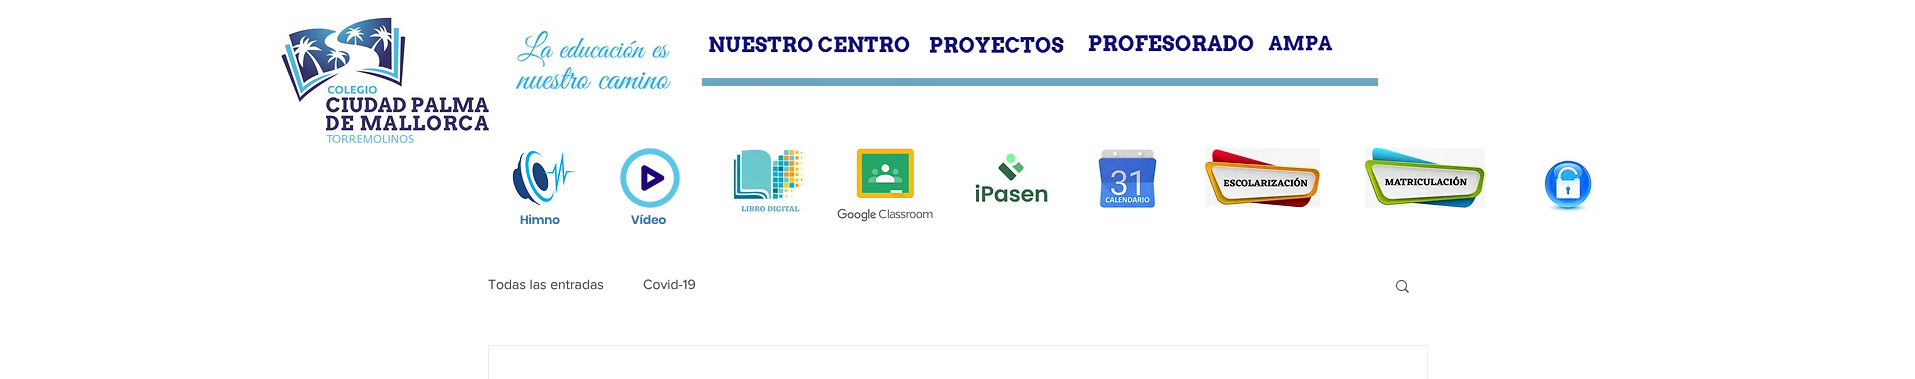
void draw(SkCanvas* canvas) {
  SkPaint paint;
  paint.setAntiAlias(true);
  auto face = [&](const char* family, int weight, float size, bool italic = false) {
    SkFontStyle style(weight, SkFontStyle::kNormal_Width,
      italic ? SkFontStyle::kItalic_Slant : SkFontStyle::kUpright_Slant);
    SkFont result(fontMgr->matchFamilyStyle(family, style), size);
    result.setSubpixel(true);
    return result;
  };
  auto paste = [&](const char* path, float x, float y, float w, float h) {
    auto image = SkImages::DeferredFromEncodedData(SkData::MakeFromFileName(path));
    canvas->drawImageRect(image, SkRect::MakeXYWH(x, y, w, h), SkSamplingOptions());
  };
  canvas->clear(0xffffffff);
  paste("img/1.png", 281, 16, 209, 128);
  paste("img/2.png", 513, 24, 160, 72);
  paste("img/3.png", 921, 30, 155, 24);
  paste("img/7.png", 1131, 30, 184, 24);
  paste("img/4.png", 1076, 30, 188, 23);
  paste("img/5.png", 700, 35, 221, 19);
  paste("img/6.png", 1076, 53, 55, 1);
  paste("img/8.png", 1264, 32, 180, 21);
  paste("img/9.png", 702, 78, 676, 8);
  paste("img/10.png", 512, 150, 64, 56);
  paste("img/11.png", 620, 148, 60, 60);
  paste("img/12.png", 730, 149, 81, 65);
  paste("img/13.png", 837, 148, 96, 74);
  paste("img/14.png", 974, 153, 80, 53);
  paste("img/15.png", 1097, 148, 65, 61);
  paste("img/16.png", 1205, 148, 115, 60);
  paste("img/17.png", 1365, 148, 120, 60);
  paste("img/18.png", 1540, 156, 56, 58);
  paste("img/19.png", 1396, 280, 13, 13);
  paint.setStroke(true);
  paint.setStrokeWidth(1);
  paint.setColor(0xffeeecec);
  canvas->drawRect(SkRect::MakeXYWH(488.5f, 345.5f, 939, 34), paint);
  auto f0 = face("Poppins", 600, 12);
  paint.setStroke(false);
  paint.setColor(0xff2b6ca3);
  canvas->drawString("Himno", 520, 224, f0, paint);
  canvas->drawString("Vídeo", 631, 224, f0, paint);
  auto f1 = face("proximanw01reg", 400, 14);
  paint.setColor(0xff414141);
  canvas->drawString("Todas las entradas", 488, 289, f1, paint);
  canvas->drawString("Covid-19", 643, 289, f1, paint);
}
